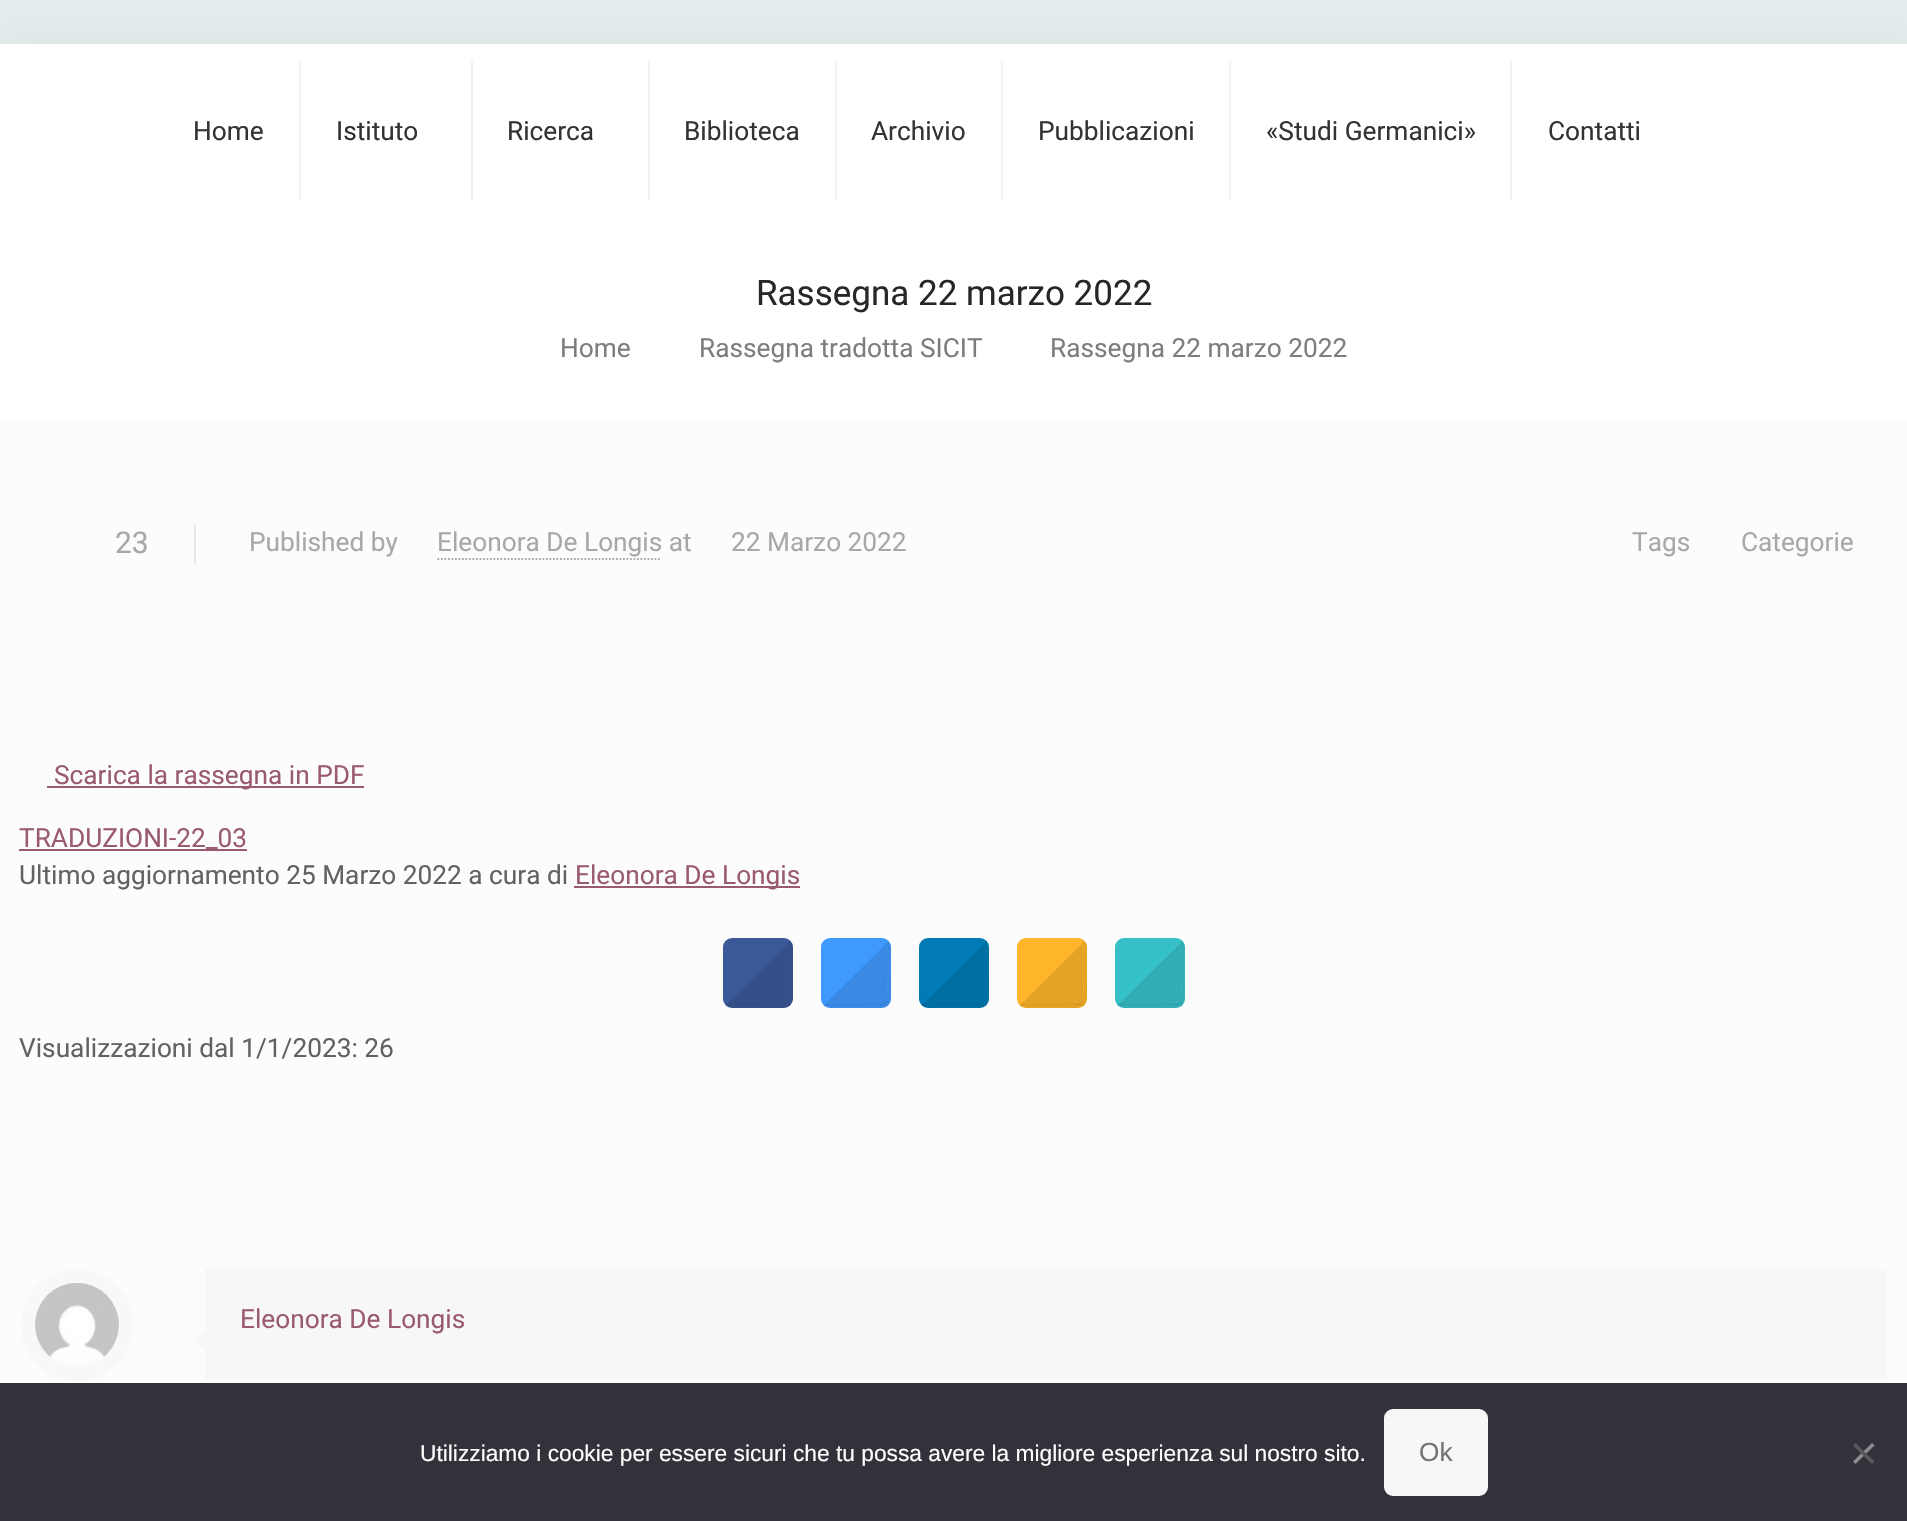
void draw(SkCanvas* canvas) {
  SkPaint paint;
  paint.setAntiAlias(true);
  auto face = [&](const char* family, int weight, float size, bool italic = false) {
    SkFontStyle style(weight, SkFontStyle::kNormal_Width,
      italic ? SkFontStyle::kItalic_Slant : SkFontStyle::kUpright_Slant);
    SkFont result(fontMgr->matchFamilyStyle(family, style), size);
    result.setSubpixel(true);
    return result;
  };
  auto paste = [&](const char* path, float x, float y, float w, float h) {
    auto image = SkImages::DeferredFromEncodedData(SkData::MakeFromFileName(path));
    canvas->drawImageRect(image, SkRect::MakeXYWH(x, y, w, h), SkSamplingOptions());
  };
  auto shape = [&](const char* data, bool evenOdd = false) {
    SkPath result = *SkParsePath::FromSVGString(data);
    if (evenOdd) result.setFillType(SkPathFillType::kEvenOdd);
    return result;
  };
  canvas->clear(0xffe4edee);
  paint.setColor(0x0f000000);
  paint.setMaskFilter(SkMaskFilter::MakeBlur(kNormal_SkBlurStyle, 13));
  canvas->drawRoundRect(SkRect::MakeXYWH(0, 44, 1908, 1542), 26, 26, paint);
  paint.setMaskFilter(nullptr);
  {
    const struct { float x, y, w, h; SkColor color; } items[] = {
      {0, 420, 1907, 963, 0xfffcfcfc},
      {0, 44, 1907, 376, 0xffffffff},
      {299, 61, 2, 140, 0xfff2f2f2},
      {471, 61, 2, 140, 0xfff2f2f2},
      {648, 61, 2, 140, 0xfff2f2f2},
      {835, 61, 2, 140, 0xfff2f2f2},
      {1001, 61, 2, 140, 0xfff2f2f2},
      {1229, 61, 2, 140, 0xfff2f2f2},
      {1510, 61, 2, 140, 0xfff2f2f2},
      {194, 525, 2, 39, 0xffe8e8e8},
    };
    for (auto [x, y, w, h, color] : items) {
      paint.setColor(color);
      canvas->drawRect(SkRect::MakeXYWH(x, y, w, h), paint);
    }
  }
  paint.setStroke(true);
  paint.setStrokeWidth(1.8f);
  paint.setColor(0xffa8a8a8);
  paint.setPathEffect(SkDashPathEffect::Make({{1.75f, 1.75f}}, 0));
  canvas->drawPath(shape("M437.5 559H661.5"), paint);
  paint.setPathEffect(nullptr);
  paint.setStroke(false);
  {
    const struct { float x, y, w, h; SkColor color; } items[] = {
      {47, 786, 317, 2, 0xff9a5a72},
      {19, 849, 228, 2, 0xff9a5a72},
      {574, 886, 226, 2, 0xff9a5a72},
    };
    for (auto [x, y, w, h, color] : items) {
      paint.setColor(color);
      canvas->drawRect(SkRect::MakeXYWH(x, y, w, h), paint);
    }
  }
  paint.setColor(0xff3b5998);
  canvas->drawRoundRect(SkRect::MakeXYWH(723, 938, 70, 70), 9, 9, paint);
  paint.setStroke(true);
  paint.setStrokeWidth(3.5f);
  paint.setColor(0x1a000000);
  canvas->drawPath(shape("M789 942C792.5 945 791 951.5 791 955.5V973C791 1012 796.5 1006 758 1006H740C736.5 1006 730 1007.5 726.5 1004"), paint);
  paint.setStroke(false);
  canvas->drawPath(shape("M727 1004L788 944C789 945 789 946 789 947V1000C789 1003 787 1005 784 1005H731C730 1005 728 1004 727 1004Z"), paint);
  paint.setColor(0xff4099ff);
  canvas->drawRoundRect(SkRect::MakeXYWH(821, 938, 70, 70), 9, 9, paint);
  paint.setStroke(true);
  paint.setColor(0x1a000000);
  canvas->drawPath(shape("M887 942C890.5 945 889 951.5 889 955.5V973C889 1012 894.5 1006 856 1006H838C834.5 1006 828 1007.5 824.5 1004"), paint);
  paint.setStroke(false);
  canvas->drawPath(shape("M825 1004L886 944C887 945 887 946 887 947V1000C887 1003 885 1005 882 1005H829C828 1005 826 1004 825 1004Z"), paint);
  paint.setColor(0xff007bb6);
  canvas->drawRoundRect(SkRect::MakeXYWH(919, 938, 70, 70), 9, 9, paint);
  paint.setStroke(true);
  paint.setColor(0x1a000000);
  canvas->drawPath(shape("M985 942C988.5 945 987 951.5 987 955.5V973C987 1012 992.5 1006 954 1006H936C932.5 1006 926 1007.5 922.5 1004"), paint);
  paint.setStroke(false);
  canvas->drawPath(shape("M923 1004L984 944C985 945 985 946 985 947V1000C985 1003 983 1005 980 1005H927C926 1005 924 1004 923 1004Z"), paint);
  paint.setColor(0xffffb62a);
  canvas->drawRoundRect(SkRect::MakeXYWH(1017, 938, 70, 70), 9, 9, paint);
  paint.setStroke(true);
  paint.setColor(0x1a000000);
  canvas->drawPath(shape("M1083 942C1086.5 945 1085 951.5 1085 955.5V973C1085 1012 1090.5 1006 1052 1006H1034C1030.5 1006 1024 1007.5 1020.5 1004"), paint);
  paint.setStroke(false);
  canvas->drawPath(shape("M1021 1004L1082 944C1083 945 1083 946 1083 947V1000C1083 1003 1081 1005 1078 1005H1025C1024 1005 1022 1004 1021 1004Z"), paint);
  paint.setColor(0xff36c1c8);
  canvas->drawRoundRect(SkRect::MakeXYWH(1115, 938, 70, 70), 9, 9, paint);
  paint.setStroke(true);
  paint.setColor(0x1a000000);
  canvas->drawPath(shape("M1181 942C1184.5 945 1183 951.5 1183 955.5V973C1183 1012 1188.5 1006 1150 1006H1132C1128.5 1006 1122 1007.5 1118.5 1004"), paint);
  paint.setStroke(false);
  canvas->drawPath(shape("M1119 1004L1180 944C1181 945 1181 946 1181 947V1000C1181 1003 1179 1005 1176 1005H1123C1122 1005 1120 1004 1119 1004Z"), paint);
  paint.setStroke(true);
  paint.setStrokeWidth(14);
  paint.setColor(0xfff8f8f8);
  canvas->drawCircle(77, 1325, 49, paint);
  paste("img/1.png", 35, 1283, 84, 74);
  paint.setStroke(false);
  paint.setColor(0xfff7f7f7);
  canvas->drawRect(SkRect::MakeXYWH(205, 1269, 1682, 110), paint);
  canvas->drawPath(shape("M205 1330V1351L194 1340.5Z"), paint);
  paint.setColor(0xff32323a);
  canvas->drawRect(SkRect::MakeXYWH(0, 1383, 1907, 138), paint);
  paint.setColor(0xfff7f7f7);
  canvas->drawRoundRect(SkRect::MakeXYWH(1384, 1409, 104, 87), 9, 9, paint);
  paint.setColor(0xff8e8e92);
  canvas->drawPath(shape("M1872 1443L1874.5 1445.5L1855.5 1464L1853 1461.5Z"), paint);
  paint.setColor(0xff59595d);
  canvas->drawPath(shape("M1853 1445.5L1855.5 1443L1874.5 1461.5L1872 1464Z"), paint);
  auto f0 = face("Roboto", 400, 26.25f);
  paint.setColor(0xff333333);
  {
    const struct { const char* s; float x, y; } items[] = {
      {"Home", 193, 140},
      {"Istituto", 336, 140},
      {"Ricerca", 507, 140},
      {"Biblioteca", 684, 140},
      {"Archivio", 871, 140},
      {"Pubblicazioni", 1038, 140},
      {"«Studi Germanici»", 1266, 140},
      {"Contatti", 1548, 140},
    };
    for (auto [s, x, y] : items) {
      canvas->drawString(s, x, y, f0, paint);
    }
  }
  auto f1 = face("Roboto", 400, 35);
  paint.setColor(0xff272727);
  canvas->drawString("Rassegna 22 marzo 2022", 756, 305, f1, paint);
  paint.setColor(0xff7d7d7d);
  {
    const struct { const char* s; float x, y; } items[] = {
      {"Home", 560, 357},
      {"Rassegna tradotta SICIT", 699, 357},
      {"Rassegna 22 marzo 2022", 1050, 357},
    };
    for (auto [s, x, y] : items) {
      canvas->drawString(s, x, y, f0, paint);
    }
  }
  auto f2 = face("Roboto", 400, 30);
  paint.setColor(0xffa8a8a8);
  canvas->drawString("23", 115, 553, f2, paint);
  {
    const struct { const char* s; float x, y; } items[] = {
      {"Published by", 249, 551},
      {"Eleonora De Longis at", 437, 551},
      {"22 Marzo 2022", 731, 551},
      {"Tags", 1632, 551},
      {"Categorie", 1741, 551},
    };
    for (auto [s, x, y] : items) {
      canvas->drawString(s, x, y, f0, paint);
    }
  }
  paint.setColor(0xff9a5a72);
  canvas->drawString("Scarica la rassegna in PDF", 54, 784, f0, paint);
  canvas->drawString("TRADUZIONI-22_03", 19, 847, f0, paint);
  paint.setColor(0xff626262);
  canvas->drawString("Ultimo aggiornamento 25 Marzo 2022 a cura di", 19, 884, f0, paint);
  paint.setColor(0xff9a5a72);
  canvas->drawString("Eleonora De Longis", 575, 884, f0, paint);
  paint.setColor(0xff626262);
  canvas->drawString("Visualizzazioni dal 1/1/2023: 26", 19, 1057, f0, paint);
  paint.setColor(0xff9a5a72);
  canvas->drawString("Eleonora De Longis", 240, 1328, f0, paint);
  auto f3 = face("Liberation Sans", 400, 22.75f);
  paint.setColor(0xffffffff);
  canvas->drawString("Utilizziamo i cookie per essere sicuri che tu possa avere la migliore esperienza sul nostro sito.", 420, 1461, f3, paint);
  auto f4 = face("Liberation Sans", 400, 26.25f);
  paint.setColor(0xff747474);
  canvas->drawString("Ok", 1419, 1461, f4, paint);
}
